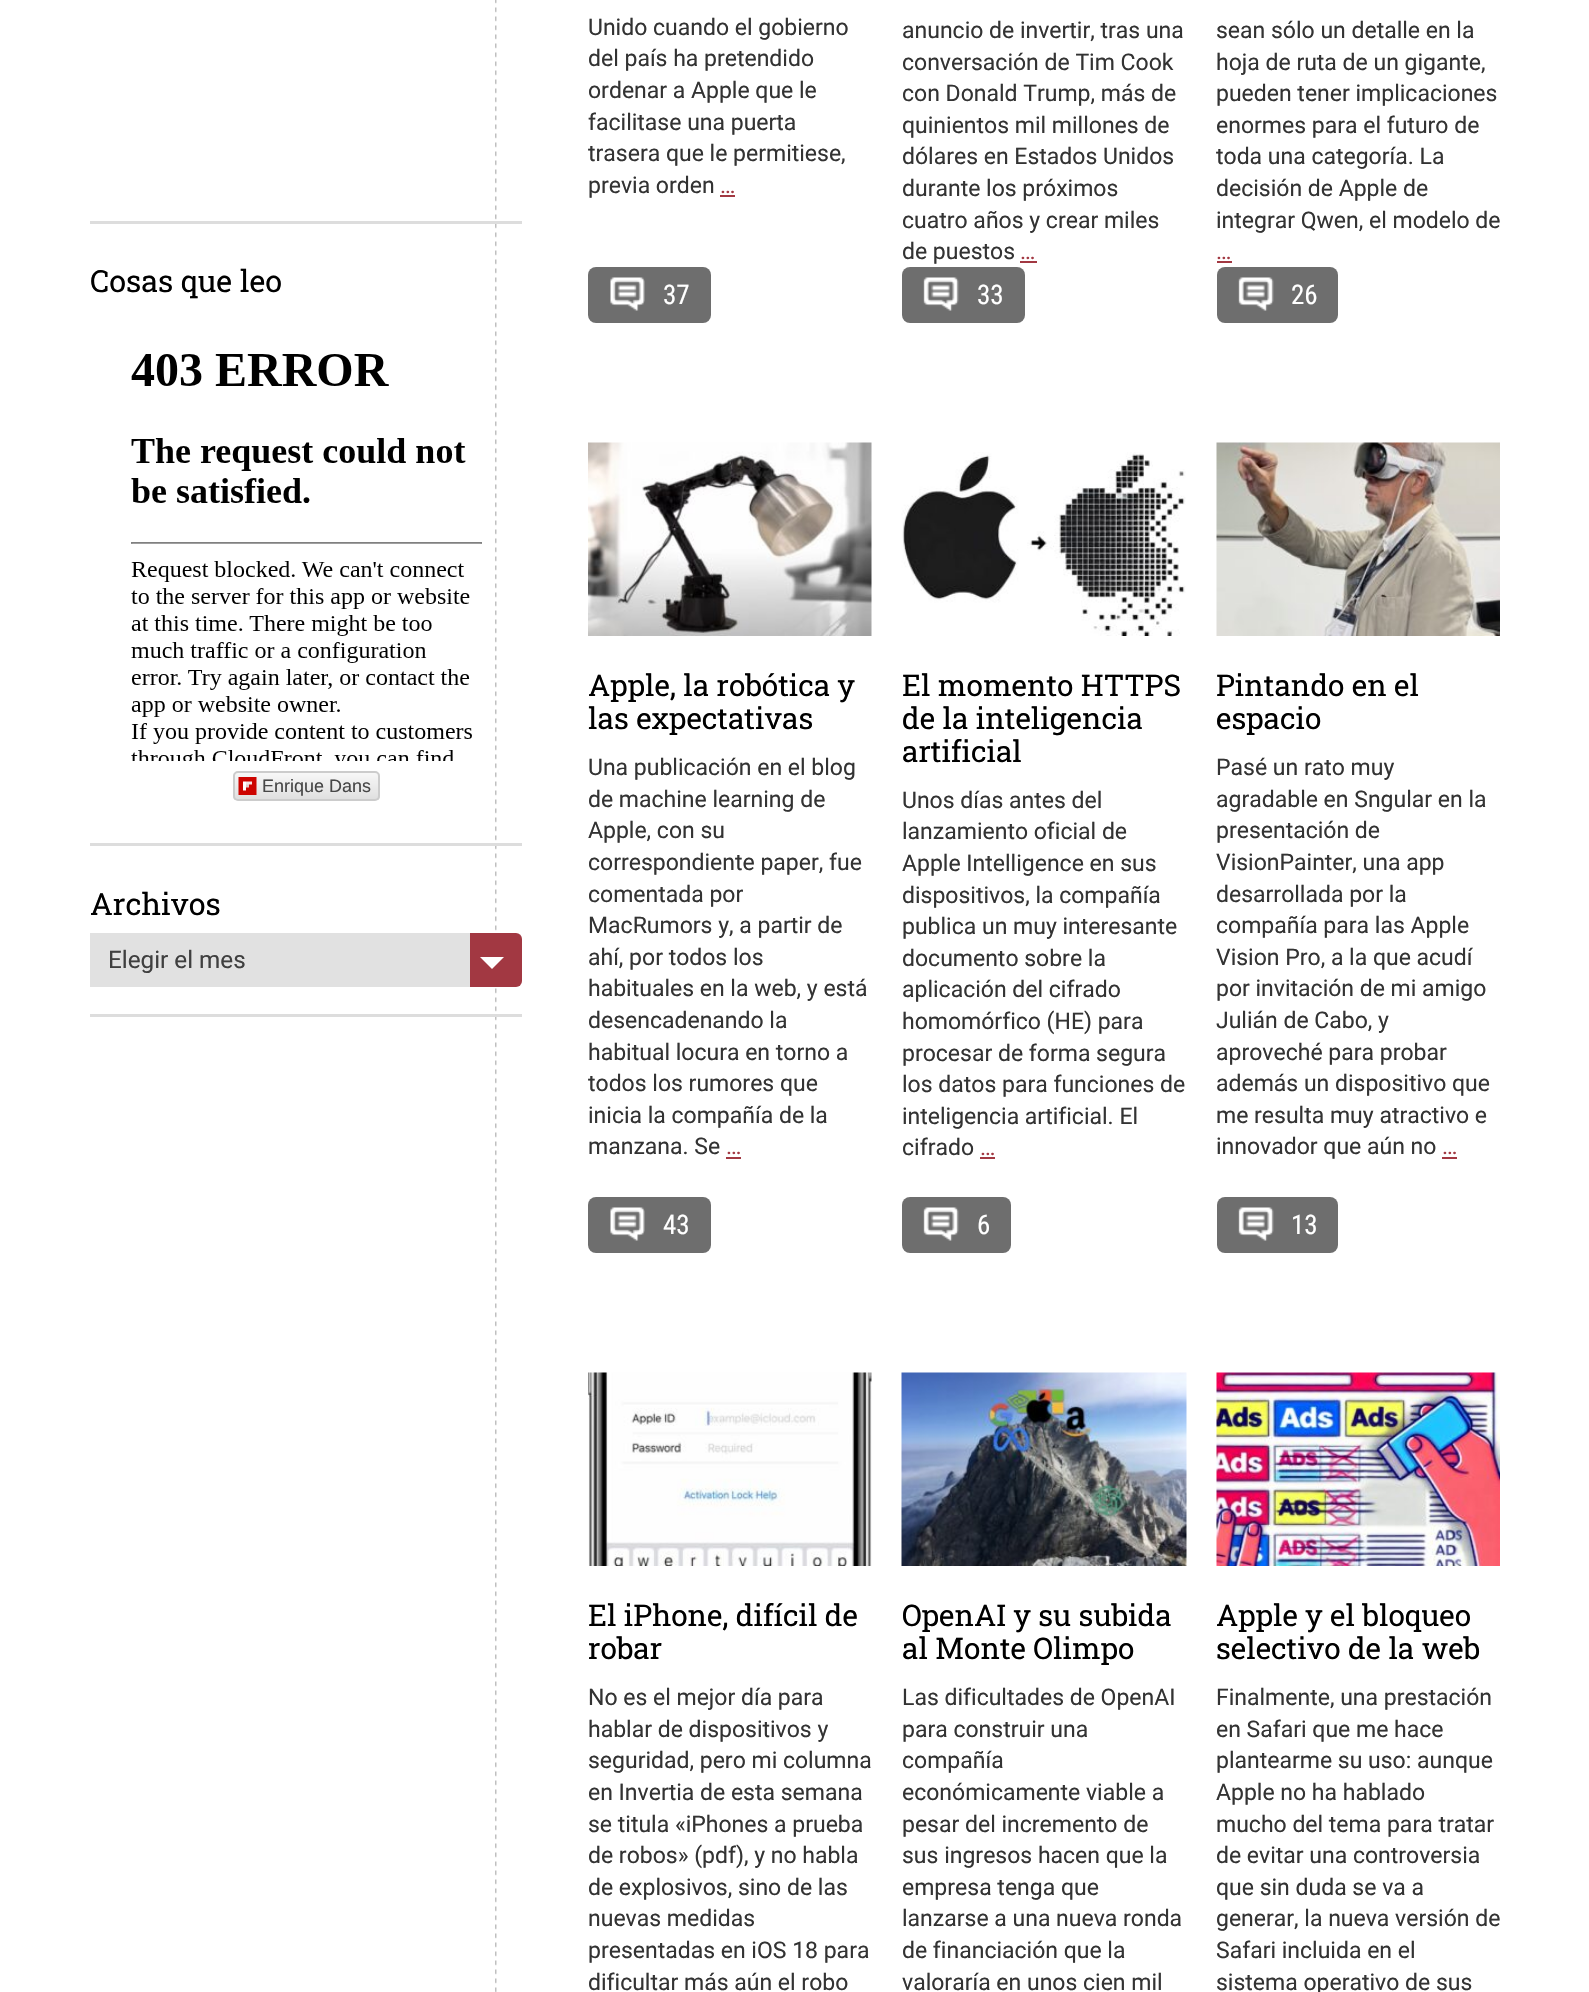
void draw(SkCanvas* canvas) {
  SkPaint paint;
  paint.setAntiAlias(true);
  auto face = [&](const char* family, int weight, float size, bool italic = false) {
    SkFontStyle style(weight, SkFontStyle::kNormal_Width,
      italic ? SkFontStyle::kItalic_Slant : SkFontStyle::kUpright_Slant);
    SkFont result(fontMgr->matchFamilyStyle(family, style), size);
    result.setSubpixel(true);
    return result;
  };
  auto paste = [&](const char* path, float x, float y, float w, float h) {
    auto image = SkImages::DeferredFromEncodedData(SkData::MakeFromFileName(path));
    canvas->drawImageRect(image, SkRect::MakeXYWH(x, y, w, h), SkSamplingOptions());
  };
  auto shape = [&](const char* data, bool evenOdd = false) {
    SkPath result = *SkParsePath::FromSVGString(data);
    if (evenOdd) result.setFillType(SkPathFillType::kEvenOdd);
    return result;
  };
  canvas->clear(0xffffffff);
  paste("img/1.png", 495, 0, 2, 1992);
  paint.setColor(0xffdddddd);
  canvas->drawRect(SkRect::MakeXYWH(90, 221, 432, 3), paint);
  canvas->drawRect(SkRect::MakeXYWH(90, 843, 432, 3), paint);
  paste("img/2.png", 131, 354, 351, 407);
  canvas->save();
  canvas->clipPath(shape("M238 771H375C378 771 380 773 380 776V796C380 799 378 801 375 801H238C235 801 233 799 233 796V776C233 773 235 771 238 771Z"), true);
  {
    const SkColor colors[] = {0xffdfdfdf, 0xfff7f7f7};
    const float stops[] = {0, 1};
    const SkPoint ends[] = {{306, 800}, {306, 773}};
    paint.setShader(SkGradientShader::MakeLinear(ends, colors, stops, 2, SkTileMode::kClamp));
    paint.setAlpha(255);
  }
  canvas->drawRect(SkRect::MakeXYWH(233, 773, 147, 27), paint);
  canvas->restore();
  paint.setStroke(true);
  paint.setStrokeWidth(2);
  paint.setShader(nullptr);
  paint.setColor(0xffcccccc);
  canvas->drawRoundRect(SkRect::MakeXYWH(234, 772, 145, 28), 4, 4, paint);
  paste("img/3.png", 238, 777, 19, 18);
  paint.setStroke(false);
  paint.setColor(0xffdddddd);
  canvas->drawRect(SkRect::MakeXYWH(90, 1014, 432, 3), paint);
  paint.setColor(0xffa23842);
  canvas->drawRoundRect(SkRect::MakeXYWH(90, 933, 432, 54), 6, 6, paint);
  paint.setColor(0xffe1e1e1);
  canvas->drawRect(SkRect::MakeXYWH(90, 933, 380, 54), paint);
  paint.setColor(0xffffffff);
  canvas->drawPath(shape("M480 957H504L492 969Z"), paint);
  paint.setColor(0xffa23842);
  canvas->drawRect(SkRect::MakeXYWH(720, 195, 15, 2), paint);
  paint.setColor(0xff6e6e6e);
  canvas->drawRoundRect(SkRect::MakeXYWH(588, 267, 123, 56), 8, 8, paint);
  paste("img/4.png", 610, 277, 35, 34);
  paint.setColor(0xffa23842);
  canvas->drawRect(SkRect::MakeXYWH(1020, 261, 17, 2), paint);
  paint.setColor(0xff6e6e6e);
  canvas->drawRoundRect(SkRect::MakeXYWH(902, 267, 123, 56), 8, 8, paint);
  paste("img/5.png", 923, 277, 36, 34);
  paint.setColor(0xffa23842);
  canvas->drawRect(SkRect::MakeXYWH(1217, 261, 15, 2), paint);
  paint.setColor(0xff6e6e6e);
  canvas->drawRoundRect(SkRect::MakeXYWH(1217, 267, 121, 56), 8, 8, paint);
  paste("img/5.png", 1238, 277, 36, 34);
  paste("img/6.png", 588, 442, 284, 194);
  paint.setColor(0xffa23842);
  canvas->drawRect(SkRect::MakeXYWH(726, 1157, 15, 2), paint);
  paint.setColor(0xff6e6e6e);
  canvas->drawRoundRect(SkRect::MakeXYWH(588, 1197, 123, 56), 8, 8, paint);
  paste("img/4.png", 610, 1207, 35, 34);
  paste("img/7.png", 901, 452, 285, 184);
  paint.setColor(0xffa23842);
  canvas->drawRect(SkRect::MakeXYWH(980, 1157, 15, 2), paint);
  paint.setColor(0xff6e6e6e);
  canvas->drawRoundRect(SkRect::MakeXYWH(902, 1197, 109, 56), 8, 8, paint);
  paste("img/5.png", 923, 1207, 36, 34);
  paste("img/8.png", 1216, 442, 284, 194);
  paint.setColor(0xffa23842);
  canvas->drawRect(SkRect::MakeXYWH(1442, 1157, 15, 2), paint);
  paint.setColor(0xff6e6e6e);
  canvas->drawRoundRect(SkRect::MakeXYWH(1217, 1197, 121, 56), 8, 8, paint);
  paste("img/5.png", 1238, 1207, 36, 34);
  paste("img/9.png", 588, 1372, 284, 194);
  paste("img/10.png", 901, 1372, 286, 194);
  paste("img/11.png", 1216, 1372, 284, 194);
  auto f0 = face("Roboto Slab", 400, 30.5f);
  paint.setColor(0xff000000);
  canvas->drawString("Cosas que leo", 90, 292, f0, paint);
  auto f1 = face("Liberation Sans", 400, 18);
  paint.setColor(0xff474747);
  canvas->drawString("Enrique Dans", 262, 792, f1, paint);
  paint.setColor(0xff000000);
  canvas->drawString("Archivos", 90, 915, f0, paint);
  auto f2 = face("Roboto", 400, 24.25f);
  paint.setColor(0xff3f3f3f);
  canvas->drawString("Elegir el mes", 108, 968, f2, paint);
  auto f3 = face("Roboto", 400, 23);
  paint.setColor(0xff333333);
  {
    const struct { const char* s; float x, y; } items[] = {
      {"Unido cuando el gobierno", 588, 35},
      {"del país ha pretendido", 588, 66},
      {"ordenar a Apple que le", 588, 98},
      {"facilitase una puerta", 588, 130},
      {"trasera que le permitiese,", 588, 161},
      {"previa orden", 588, 193},
    };
    for (auto [s, x, y] : items) {
      canvas->drawString(s, x, y, f3, paint);
    }
  }
  paint.setColor(0xffa23842);
  canvas->drawString("…", 720, 193, f3, paint);
  auto f4 = face("Roboto Condensed", 400, 27);
  paint.setColor(0xffffffff);
  canvas->drawString("37", 663, 304, f4, paint);
  paint.setColor(0xff333333);
  {
    const struct { const char* s; float x, y; } items[] = {
      {"anuncio de invertir, tras una", 902, 38},
      {"conversación de Tim Cook", 902, 70},
      {"con Donald Trump, más de", 902, 101},
      {"quinientos mil millones de", 902, 133},
      {"dólares en Estados Unidos", 902, 164},
      {"durante los próximos", 902, 196},
      {"cuatro años y crear miles", 902, 228},
      {"de puestos", 902, 259},
    };
    for (auto [s, x, y] : items) {
      canvas->drawString(s, x, y, f3, paint);
    }
  }
  paint.setColor(0xffa23842);
  canvas->drawString("…", 1020, 259, f3, paint);
  paint.setColor(0xffffffff);
  canvas->drawString("33", 977, 304, f4, paint);
  paint.setColor(0xff333333);
  {
    const struct { const char* s; float x, y; } items[] = {
      {"sean sólo un detalle en la", 1216, 38},
      {"hoja de ruta de un gigante,", 1216, 70},
      {"pueden tener implicaciones", 1216, 101},
      {"enormes para el futuro de", 1216, 133},
      {"toda una categoría. La", 1216, 164},
      {"decisión de Apple de", 1216, 196},
      {"integrar Qwen, el modelo de", 1216, 228},
    };
    for (auto [s, x, y] : items) {
      canvas->drawString(s, x, y, f3, paint);
    }
  }
  paint.setColor(0xffa23842);
  canvas->drawString("…", 1216, 259, f3, paint);
  paint.setColor(0xffffffff);
  canvas->drawString("26", 1291, 304, f4, paint);
  auto f5 = face("Roboto Slab", 400, 29.75f);
  paint.setColor(0xff000000);
  canvas->drawString("Apple, la robótica y", 588, 696, f5, paint);
  canvas->drawString("las expectativas", 588, 729, f5, paint);
  paint.setColor(0xff333333);
  {
    const struct { const char* s; float x, y; } items[] = {
      {"Una publicación en el blog", 588, 775},
      {"de machine learning de", 588, 807},
      {"Apple, con su", 588, 838},
      {"correspondiente paper, fue", 588, 870},
      {"comentada por", 588, 902},
      {"MacRumors y, a partir de", 588, 933},
      {"ahí, por todos los", 588, 965},
      {"habituales en la web, y está", 588, 996},
      {"desencadenando la", 588, 1028},
      {"habitual locura en torno a", 588, 1060},
      {"todos los rumores que", 588, 1091},
      {"inicia la compañía de la", 588, 1123},
      {"manzana. Se", 588, 1154},
    };
    for (auto [s, x, y] : items) {
      canvas->drawString(s, x, y, f3, paint);
    }
  }
  paint.setColor(0xffa23842);
  canvas->drawString("…", 726, 1154, f3, paint);
  paint.setColor(0xffffffff);
  canvas->drawString("43", 663, 1234, f4, paint);
  paint.setColor(0xff000000);
  {
    const struct { const char* s; float x, y; } items[] = {
      {"El momento HTTPS", 902, 696},
      {"de la inteligencia", 902, 729},
      {"artificial", 902, 762},
    };
    for (auto [s, x, y] : items) {
      canvas->drawString(s, x, y, f5, paint);
    }
  }
  paint.setColor(0xff333333);
  {
    const struct { const char* s; float x, y; } items[] = {
      {"Unos días antes del", 902, 808},
      {"lanzamiento oficial de", 902, 839},
      {"Apple Intelligence en sus", 902, 871},
      {"dispositivos, la compañía", 902, 903},
      {"publica un muy interesante", 902, 934},
      {"documento sobre la", 902, 966},
      {"aplicación del cifrado", 902, 997},
      {"homomórfico (HE) para", 902, 1029},
      {"procesar de forma segura", 902, 1061},
      {"los datos para funciones de", 902, 1092},
      {"inteligencia artificial. El", 902, 1124},
      {"cifrado", 902, 1155},
    };
    for (auto [s, x, y] : items) {
      canvas->drawString(s, x, y, f3, paint);
    }
  }
  paint.setColor(0xffa23842);
  canvas->drawString("…", 980, 1155, f3, paint);
  paint.setColor(0xffffffff);
  canvas->drawString("6", 977, 1234, f4, paint);
  paint.setColor(0xff000000);
  canvas->drawString("Pintando en el", 1216, 696, f5, paint);
  canvas->drawString("espacio", 1216, 729, f5, paint);
  paint.setColor(0xff333333);
  {
    const struct { const char* s; float x, y; } items[] = {
      {"Pasé un rato muy", 1216, 775},
      {"agradable en Sngular en la", 1216, 807},
      {"presentación de", 1216, 838},
      {"VisionPainter, una app", 1216, 870},
      {"desarrollada por la", 1216, 902},
      {"compañía para las Apple", 1216, 933},
      {"Vision Pro, a la que acudí", 1216, 965},
      {"por invitación de mi amigo", 1216, 996},
      {"Julián de Cabo, y", 1216, 1028},
      {"aproveché para probar", 1216, 1060},
      {"además un dispositivo que", 1216, 1091},
      {"me resulta muy atractivo e", 1216, 1123},
      {"innovador que aún no", 1216, 1154},
    };
    for (auto [s, x, y] : items) {
      canvas->drawString(s, x, y, f3, paint);
    }
  }
  paint.setColor(0xffa23842);
  canvas->drawString("…", 1442, 1154, f3, paint);
  paint.setColor(0xffffffff);
  canvas->drawString("13", 1291, 1234, f4, paint);
  paint.setColor(0xff000000);
  canvas->drawString("El iPhone, difícil de", 588, 1626, f5, paint);
  canvas->drawString("robar", 588, 1659, f5, paint);
  paint.setColor(0xff333333);
  {
    const struct { const char* s; float x, y; } items[] = {
      {"No es el mejor día para", 588, 1705},
      {"hablar de dispositivos y", 588, 1737},
      {"seguridad, pero mi columna", 588, 1768},
      {"en Invertia de esta semana", 588, 1800},
      {"se titula «iPhones a prueba", 588, 1832},
      {"de robos» (pdf), y no habla", 588, 1863},
      {"de explosivos, sino de las", 588, 1895},
      {"nuevas medidas", 588, 1926},
      {"presentadas en iOS 18 para", 588, 1958},
      {"dificultar más aún el robo", 588, 1990},
    };
    for (auto [s, x, y] : items) {
      canvas->drawString(s, x, y, f3, paint);
    }
  }
  paint.setColor(0xff000000);
  canvas->drawString("OpenAI y su subida", 902, 1626, f5, paint);
  canvas->drawString("al Monte Olimpo", 902, 1659, f5, paint);
  paint.setColor(0xff333333);
  {
    const struct { const char* s; float x, y; } items[] = {
      {"Las dificultades de OpenAI", 902, 1705},
      {"para construir una", 902, 1737},
      {"compañía", 902, 1768},
      {"económicamente viable a", 902, 1800},
      {"pesar del incremento de", 902, 1832},
      {"sus ingresos hacen que la", 902, 1863},
      {"empresa tenga que", 902, 1895},
      {"lanzarse a una nueva ronda", 902, 1926},
      {"de financiación que la", 902, 1958},
      {"valoraría en unos cien mil", 902, 1990},
    };
    for (auto [s, x, y] : items) {
      canvas->drawString(s, x, y, f3, paint);
    }
  }
  paint.setColor(0xff000000);
  canvas->drawString("Apple y el bloqueo", 1216, 1626, f5, paint);
  canvas->drawString("selectivo de la web", 1216, 1659, f5, paint);
  paint.setColor(0xff333333);
  {
    const struct { const char* s; float x, y; } items[] = {
      {"Finalmente, una prestación", 1216, 1705},
      {"en Safari que me hace", 1216, 1737},
      {"plantearme su uso: aunque", 1216, 1768},
      {"Apple no ha hablado", 1216, 1800},
      {"mucho del tema para tratar", 1216, 1832},
      {"de evitar una controversia", 1216, 1863},
      {"que sin duda se va a", 1216, 1895},
      {"generar, la nueva versión de", 1216, 1926},
      {"Safari incluida en el", 1216, 1958},
      {"sistema operativo de sus", 1216, 1990},
    };
    for (auto [s, x, y] : items) {
      canvas->drawString(s, x, y, f3, paint);
    }
  }
}
